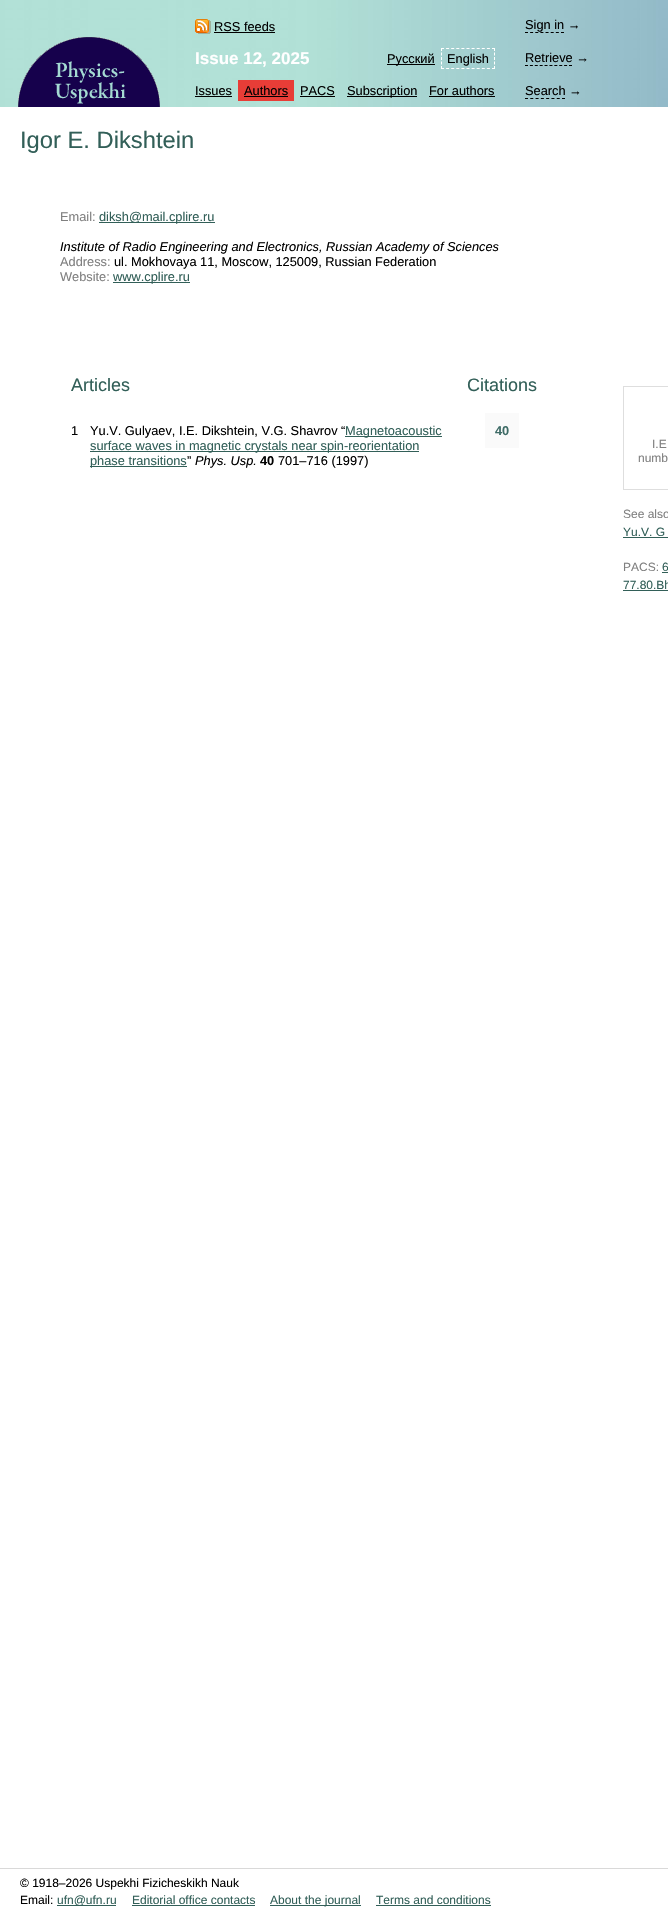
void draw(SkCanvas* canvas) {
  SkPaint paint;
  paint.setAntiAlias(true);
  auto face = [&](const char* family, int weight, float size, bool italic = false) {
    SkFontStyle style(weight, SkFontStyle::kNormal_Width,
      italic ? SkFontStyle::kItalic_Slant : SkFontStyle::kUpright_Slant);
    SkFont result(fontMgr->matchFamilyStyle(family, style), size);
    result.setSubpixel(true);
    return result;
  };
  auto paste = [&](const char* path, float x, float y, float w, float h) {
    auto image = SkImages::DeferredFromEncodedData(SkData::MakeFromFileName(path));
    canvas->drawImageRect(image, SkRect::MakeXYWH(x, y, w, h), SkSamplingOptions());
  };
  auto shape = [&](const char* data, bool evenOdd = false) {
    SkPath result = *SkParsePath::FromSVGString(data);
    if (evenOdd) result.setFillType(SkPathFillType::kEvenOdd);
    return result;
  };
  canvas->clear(0xffffffff);
  paste("img/1.png", 0, 0, 668, 107);
  paste("img/2.png", 195, 19, 16, 15);
  paint.setColor(0xff000000);
  canvas->drawRect(SkRect::MakeXYWH(214, 32, 61, 1), paint);
  paint.setStroke(true);
  paint.setStrokeWidth(1);
  paint.setPathEffect(SkDashPathEffect::Make({{3, 2.14f}}, 0));
  canvas->drawPath(shape("M525 32.5H564"), paint);
  paint.setPathEffect(nullptr);
  paste("img/3.png", 18, 37, 142, 70);
  paint.setStroke(false);
  canvas->drawRect(SkRect::MakeXYWH(387, 64, 48, 1), paint);
  paint.setStroke(true);
  paint.setColor(0xffffffff);
  paint.setPathEffect(SkDashPathEffect::Make({{3, 2.1f}}, 0));
  canvas->drawPath(shape("M441 48.5H495"), paint);
  paint.setPathEffect(nullptr);
  paint.setPathEffect(SkDashPathEffect::Make({{3, 1.5f}}, 0));
  canvas->drawPath(shape("M494.5 48V69"), paint);
  paint.setPathEffect(nullptr);
  paint.setPathEffect(SkDashPathEffect::Make({{3, 2.1f}}, 0));
  canvas->drawPath(shape("M441 68.5H495"), paint);
  paint.setPathEffect(nullptr);
  paint.setPathEffect(SkDashPathEffect::Make({{3, 1.5f}}, 0));
  canvas->drawPath(shape("M441.5 48V69"), paint);
  paint.setPathEffect(nullptr);
  paint.setColor(0xff000000);
  paint.setPathEffect(SkDashPathEffect::Make({{3, 1.89f}}, 0));
  canvas->drawPath(shape("M525 65.5H572"), paint);
  paint.setPathEffect(nullptr);
  paint.setStroke(false);
  {
    const struct { float x, y, w, h; SkColor color; } items[] = {
      {195, 96, 37, 1, 0xff000000},
      {238, 80, 56, 21, 0xffe83d37},
      {244, 96, 44, 1, 0xff000000},
      {300, 96, 35, 1, 0xff000000},
      {347, 96, 70, 1, 0xff000000},
      {429, 96, 66, 1, 0xff000000},
    };
    for (auto [x, y, w, h, color] : items) {
      paint.setColor(color);
      canvas->drawRect(SkRect::MakeXYWH(x, y, w, h), paint);
    }
  }
  paint.setStroke(true);
  paint.setPathEffect(SkDashPathEffect::Make({{3, 2.29f}}, 0));
  canvas->drawPath(shape("M525 98.5H565"), paint);
  paint.setPathEffect(nullptr);
  paint.setStroke(false);
  {
    const struct { float x, y, w, h; SkColor color; } items[] = {
      {99, 222, 116, 1, 0xff325f58},
      {113, 282, 77, 1, 0xff325f58},
      {90, 451, 329, 1, 0xff325f58},
      {90, 466, 97, 1, 0xff325f58},
      {485, 413, 34, 35, 0xfffafafa},
    };
    for (auto [x, y, w, h, color] : items) {
      paint.setColor(color);
      canvas->drawRect(SkRect::MakeXYWH(x, y, w, h), paint);
    }
  }
  paint.setStroke(true);
  paint.setColor(0xffdedede);
  canvas->drawRect(SkRect::MakeXYWH(623.5f, 386.5f, 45, 103), paint);
  paint.setStroke(false);
  {
    const struct { float x, y, w, h; SkColor color; } items[] = {
      {623, 537, 45, 1, 0xff325f58},
      {662, 572, 6, 1, 0xff325f58},
      {623, 590, 45, 1, 0xff325f58},
      {0, 1868, 668, 1, 0xffd9d9d9},
      {57, 1905, 59, 1, 0xff325f58},
      {132, 1905, 123, 1, 0xff325f58},
      {270, 1905, 91, 1, 0xff325f58},
      {376, 1905, 115, 1, 0xff325f58},
    };
    for (auto [x, y, w, h, color] : items) {
      paint.setColor(color);
      canvas->drawRect(SkRect::MakeXYWH(x, y, w, h), paint);
    }
  }
  auto f0 = face("Liberation Sans", 400, 12.8f);
  paint.setColor(0xff000000);
  {
    const struct { const char* s; float x, y; } items[] = {
      {"RSS feeds", 214, 31},
      {"Sign in →", 525, 29},
      {"Русский", 387, 63},
      {"English", 447, 63},
    };
    for (auto [s, x, y] : items) {
      canvas->drawString(s, x, y, f0, paint);
    }
  }
  auto f1 = face("Liberation Sans", 700, 17);
  paint.setColor(0xffffffff);
  canvas->drawString("Issue 12, 2025", 195, 64, f1, paint);
  paint.setColor(0xff000000);
  {
    const struct { const char* s; float x, y; } items[] = {
      {"Retrieve →", 525, 62},
      {"Issues", 195, 95},
      {"Authors", 244, 95},
      {"PACS", 300, 95},
      {"Subscription", 347, 95},
      {"For authors", 429, 95},
      {"Search →", 525, 95},
    };
    for (auto [s, x, y] : items) {
      canvas->drawString(s, x, y, f0, paint);
    }
  }
  auto f2 = face("Liberation Sans", 400, 23.75f);
  paint.setColor(0xff325f58);
  canvas->drawString("Igor E. Dikshtein", 20, 148, f2, paint);
  paint.setColor(0xff808080);
  canvas->drawString("Email:", 60, 221, f0, paint);
  paint.setColor(0xff325f58);
  canvas->drawString("diksh@mail.cplire.ru", 99, 221, f0, paint);
  auto f3 = face("Liberation Sans", 400, 12.8f, true);
  paint.setColor(0xff000000);
  canvas->drawString("Institute of Radio Engineering and Electronics, Russian Academy of Sciences", 60, 251, f3, paint);
  paint.setColor(0xff808080);
  canvas->drawString("Address:", 60, 266, f0, paint);
  paint.setColor(0xff000000);
  canvas->drawString("ul. Mokhovaya 11, Moscow, 125009, Russian Federation", 114, 266, f0, paint);
  paint.setColor(0xff808080);
  canvas->drawString("Website:", 60, 281, f0, paint);
  paint.setColor(0xff325f58);
  canvas->drawString("www.cplire.ru", 113, 281, f0, paint);
  auto f4 = face("Liberation Sans", 400, 18);
  canvas->drawString("Articles", 71, 391, f4, paint);
  canvas->drawString("Citations", 467, 391, f4, paint);
  paint.setColor(0xff000000);
  canvas->drawString("1", 71, 435, f0, paint);
  canvas->drawString("Yu.V. Gulyaev, I.E. Dikshtein, V.G. Shavrov “", 90, 435, f0, paint);
  paint.setColor(0xff325f58);
  canvas->drawRect(SkRect::MakeXYWH(345, 436, 97, 1), paint);
  {
    const struct { const char* s; float x, y; } items[] = {
      {"Magnetoacoustic", 345, 435},
      {"surface waves in magnetic crystals near spin-reorientation", 90, 450},
      {"phase transitions", 90, 465},
    };
    for (auto [s, x, y] : items) {
      canvas->drawString(s, x, y, f0, paint);
    }
  }
  paint.setColor(0xff000000);
  canvas->drawString("”", 187, 465, f0, paint);
  canvas->drawString("Phys. Usp.", 195, 465, f3, paint);
  auto f5 = face("Liberation Sans", 700, 12.8f);
  canvas->drawString("40", 260, 465, f5, paint);
  canvas->drawString("701–716 (1997)", 278, 465, f0, paint);
  paint.setColor(0xff3f6c67);
  canvas->drawString("40", 495, 435, f5, paint);
  auto f6 = face("Liberation Sans", 400, 12);
  paint.setColor(0xff808080);
  {
    const struct { const char* s; float x, y; } items[] = {
      {"I.E", 652, 448},
      {"numb", 638, 462},
      {"See also", 623, 518},
    };
    for (auto [s, x, y] : items) {
      canvas->drawString(s, x, y, f6, paint);
    }
  }
  paint.setColor(0xff325f58);
  canvas->drawString("Yu.V. G", 623, 536, f6, paint);
  paint.setColor(0xff808080);
  canvas->drawString("PACS:", 623, 571, f6, paint);
  paint.setColor(0xff325f58);
  canvas->drawString("6", 662, 571, f6, paint);
  canvas->drawString("77.80.Bh", 623, 589, f6, paint);
  paint.setColor(0xff000000);
  canvas->drawString("© 1918–2026 Uspekhi Fizicheskikh Nauk", 20, 1887, f6, paint);
  canvas->drawString("Email:", 20, 1904, f6, paint);
  paint.setColor(0xff325f58);
  {
    const struct { const char* s; float x, y; } items[] = {
      {"ufn@ufn.ru", 57, 1904},
      {"Editorial office contacts", 132, 1904},
      {"About the journal", 270, 1904},
      {"Terms and conditions", 376, 1904},
    };
    for (auto [s, x, y] : items) {
      canvas->drawString(s, x, y, f6, paint);
    }
  }
}
